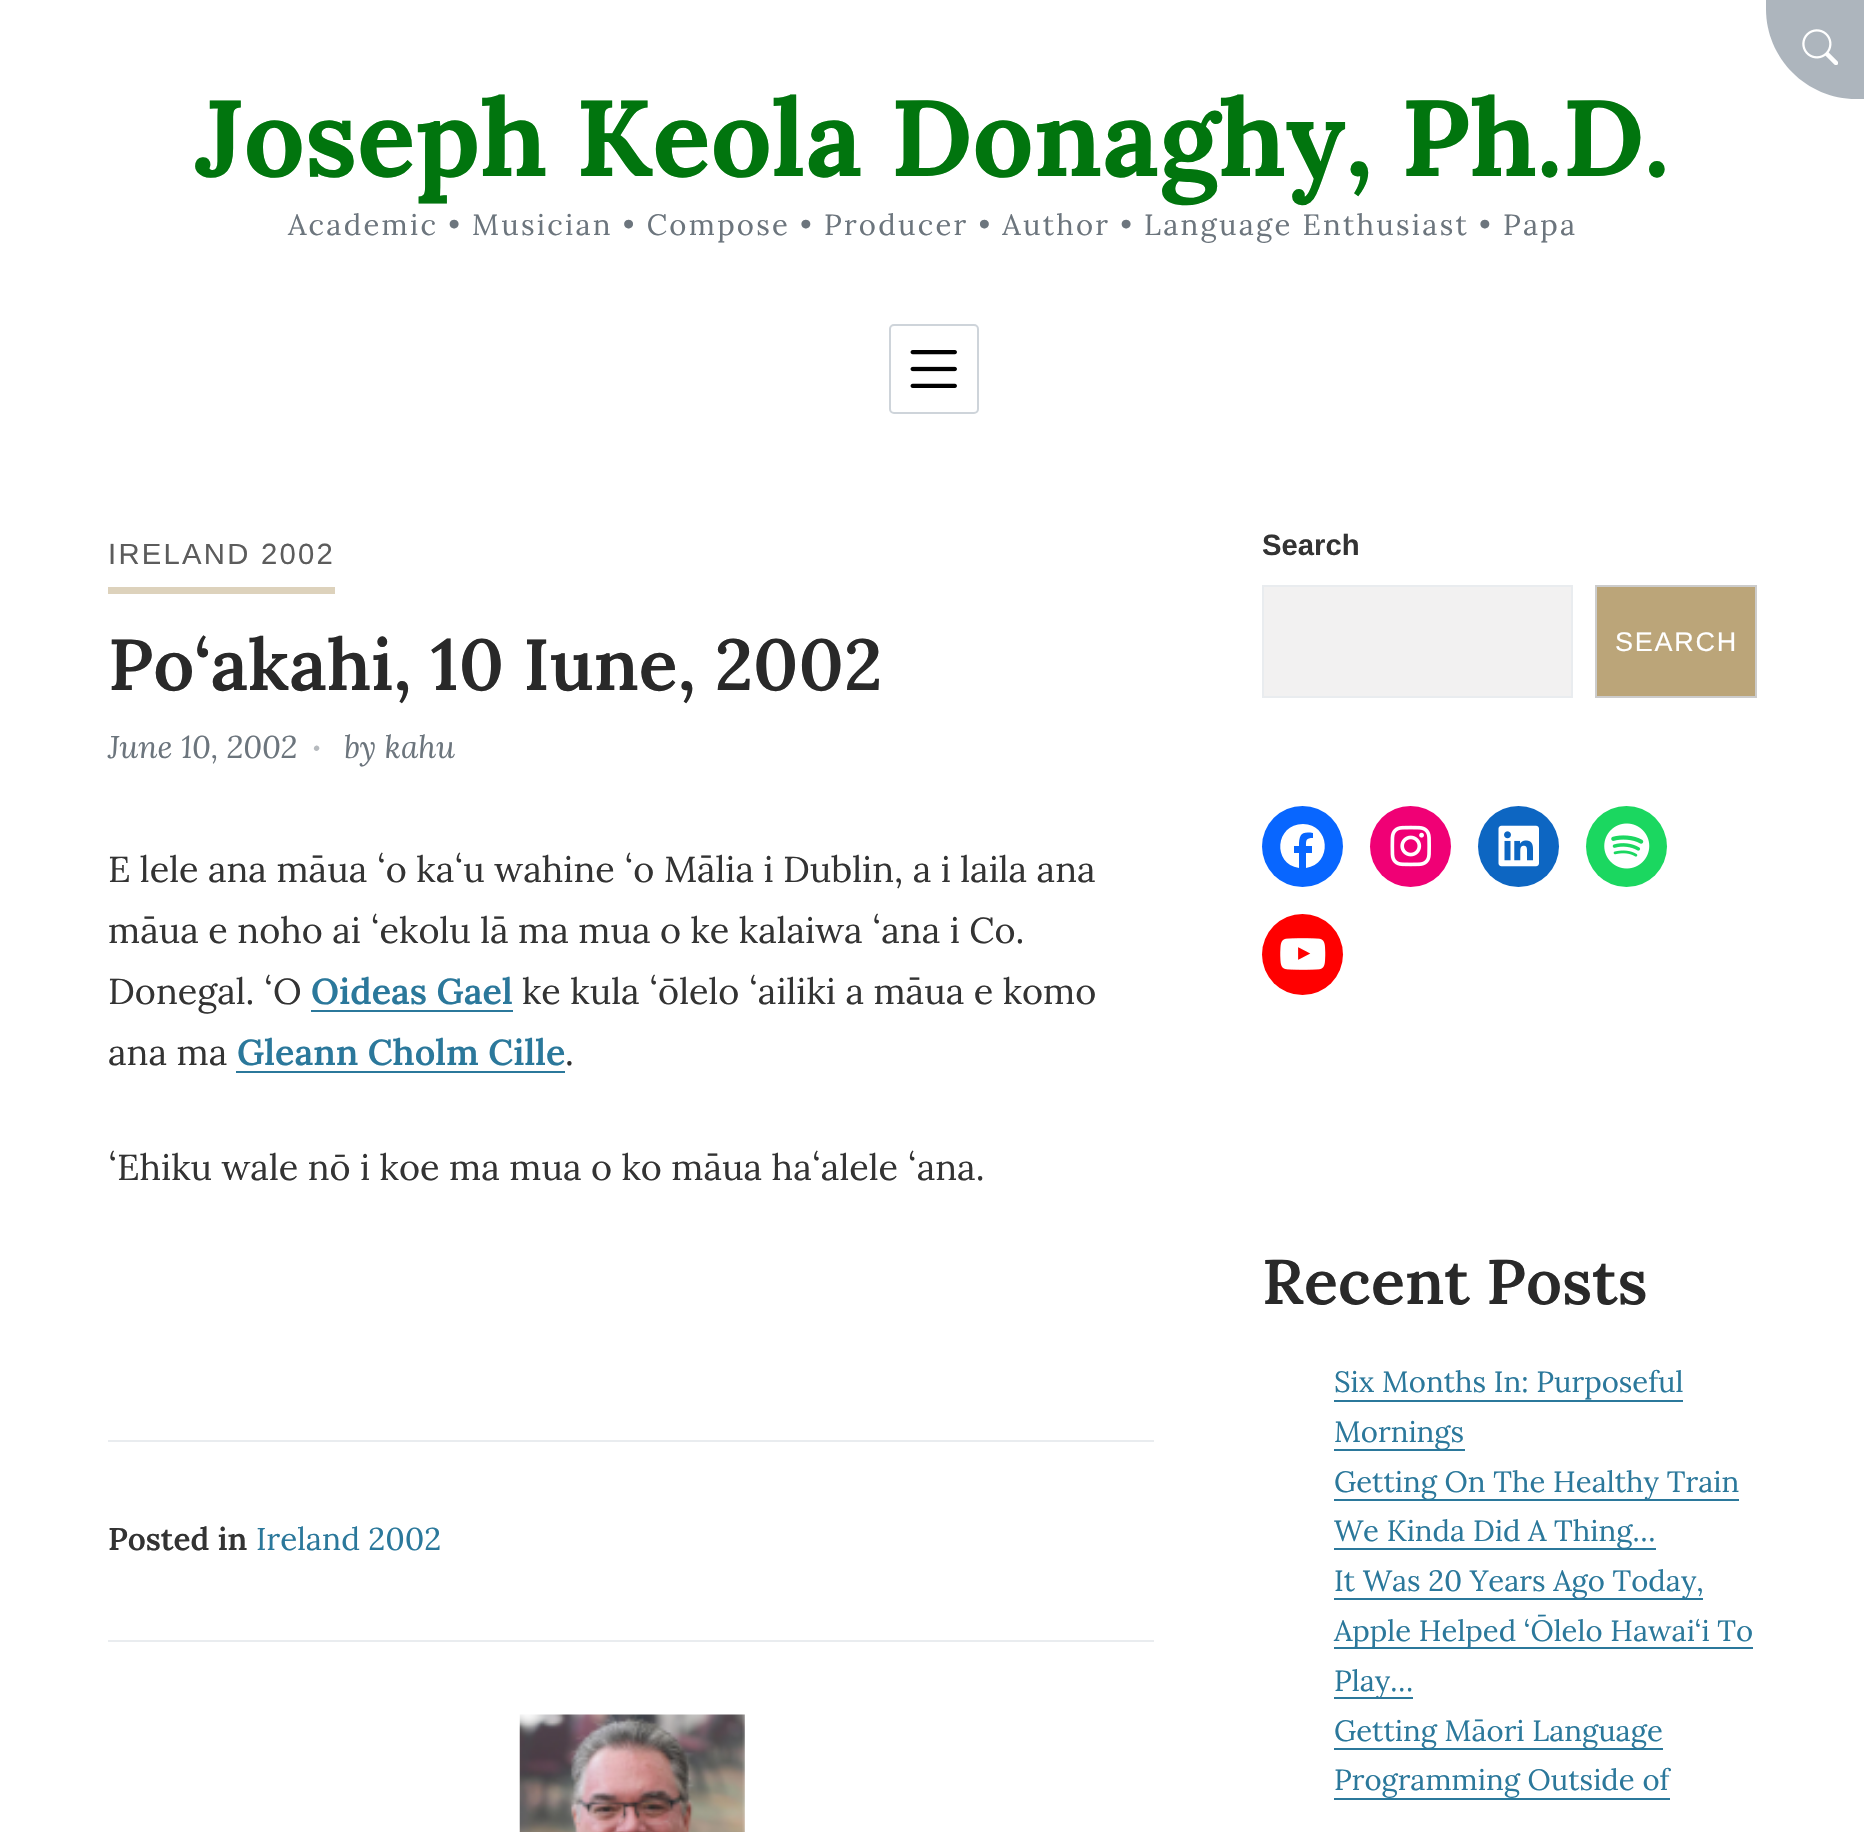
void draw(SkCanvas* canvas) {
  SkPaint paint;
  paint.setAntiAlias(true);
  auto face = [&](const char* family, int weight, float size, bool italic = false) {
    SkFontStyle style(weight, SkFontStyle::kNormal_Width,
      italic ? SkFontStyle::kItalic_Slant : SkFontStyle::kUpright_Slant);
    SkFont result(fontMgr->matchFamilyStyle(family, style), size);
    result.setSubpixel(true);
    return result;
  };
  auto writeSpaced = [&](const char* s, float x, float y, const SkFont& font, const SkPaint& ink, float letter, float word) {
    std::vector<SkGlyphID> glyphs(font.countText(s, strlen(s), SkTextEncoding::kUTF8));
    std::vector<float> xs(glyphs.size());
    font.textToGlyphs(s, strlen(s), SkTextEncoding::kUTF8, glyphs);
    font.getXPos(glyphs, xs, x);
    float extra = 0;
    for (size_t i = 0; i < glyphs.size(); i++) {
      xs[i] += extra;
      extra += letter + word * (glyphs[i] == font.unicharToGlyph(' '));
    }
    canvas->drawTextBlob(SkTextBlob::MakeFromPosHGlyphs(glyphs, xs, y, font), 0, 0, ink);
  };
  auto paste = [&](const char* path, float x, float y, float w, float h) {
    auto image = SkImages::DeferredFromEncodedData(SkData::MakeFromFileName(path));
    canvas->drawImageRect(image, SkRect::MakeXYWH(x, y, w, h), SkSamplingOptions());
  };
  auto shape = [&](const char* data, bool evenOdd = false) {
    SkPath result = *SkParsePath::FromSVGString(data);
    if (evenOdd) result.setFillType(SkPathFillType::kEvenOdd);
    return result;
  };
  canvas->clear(0xffffffff);
  paint.setColor(0xffadb5bd);
  canvas->drawPath(shape("M1766 0H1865V99H1856C1806.5 99 1766 58.5 1766 9Z"), paint);
  paste("img/1.png", 1802, 29, 36, 36);
  paint.setStroke(true);
  paint.setStrokeWidth(2);
  paint.setColor(0xffced4da);
  canvas->drawRoundRect(SkRect::MakeXYWH(890, 325, 88, 88), 4, 4, paint);
  paste("img/2.png", 910, 350, 47, 38);
  paint.setStroke(false);
  {
    const struct { float x, y, w, h; SkColor color; } items[] = {
      {108, 587, 227, 7, 0xffddd2bc},
      {108, 1440, 1046, 2, 0xffe9ecef},
      {311, 1010, 202, 2, 0xff2b789b},
      {236, 1071, 329, 2, 0xff2b789b},
      {108, 1640, 1046, 2, 0xffe9ecef},
    };
    for (auto [x, y, w, h, color] : items) {
      paint.setColor(color);
      canvas->drawRect(SkRect::MakeXYWH(x, y, w, h), paint);
    }
  }
  paste("img/3.png", 519, 1714, 226, 118);
  paint.setColor(0xfff2f1f1);
  canvas->drawRect(SkRect::MakeXYWH(1263, 586, 309, 111), paint);
  paint.setStroke(true);
  paint.setColor(0xffe9ecef);
  canvas->drawRect(SkRect::MakeXYWH(1263, 586, 309, 111), paint);
  paint.setStroke(false);
  paint.setColor(0xffbba579);
  canvas->drawRect(SkRect::MakeXYWH(1596, 586, 160, 111), paint);
  paint.setStroke(true);
  paint.setColor(0xffcccccc);
  canvas->drawRect(SkRect::MakeXYWH(1596, 586, 160, 111), paint);
  paint.setStroke(false);
  paint.setColor(0xff0866ff);
  canvas->drawCircle(1302.5f, 846.5f, 40.5f, paint);
  paint.setColor(0xffffffff);
  canvas->drawPath(shape("M1303 824C1275 824 1272 864 1299 868V853H1294V846H1299C1299 835 1301 831 1313 833V838C1306 838 1306 840 1306 846H1312V853H1306V868C1333 864 1330 824 1303 824Z"), paint);
  paint.setColor(0xfff00075);
  canvas->drawCircle(1410.5f, 846.5f, 40.5f, paint);
  paste("img/4.png", 1390, 825, 41, 42);
  paint.setColor(0xff0d66c2);
  canvas->drawCircle(1518.5f, 846.5f, 40.5f, paint);
  paste("img/5.png", 1498, 825, 41, 42);
  paint.setColor(0xff1bd760);
  canvas->drawCircle(1626.5f, 846.5f, 40.5f, paint);
  paste("img/6.png", 1604, 823, 46, 46);
  paint.setColor(0xffff0000);
  canvas->drawCircle(1302.5f, 954.5f, 40.5f, paint);
  paste("img/7.png", 1280, 938, 46, 32);
  {
    const struct { float x, y, w, h; SkColor color; } items[] = {
      {1334, 1400, 349, 2, 0xff2b789b},
      {1334, 1449, 131, 2, 0xff2b789b},
      {1334, 1499, 405, 2, 0xff2b789b},
      {1334, 1548, 322, 2, 0xff2b789b},
      {1334, 1598, 369, 2, 0xff2b789b},
      {1334, 1647, 419, 2, 0xff2b789b},
      {1334, 1697, 79, 2, 0xff2b789b},
      {1334, 1748, 329, 2, 0xff2b789b},
      {1334, 1798, 336, 2, 0xff2b789b},
    };
    for (auto [x, y, w, h, color] : items) {
      paint.setColor(color);
      canvas->drawRect(SkRect::MakeXYWH(x, y, w, h), paint);
    }
  }
  auto f0 = face("Lora", 700, 108);
  paint.setColor(0xff01750e);
  canvas->drawString("Joseph Keola Donaghy, Ph.D.", 195, 176, f0, paint);
  auto f1 = face("Lora", 400, 29.25f);
  paint.setColor(0xff6c757d);
  writeSpaced("Academic • Musician • Compose • Producer • Author • Language Enthusiast • Papa", 288, 235, f1, paint, 2.25f, 0);
  auto f2 = face("Liberation Sans", 400, 29.25f);
  paint.setColor(0xff5c5c5c);
  writeSpaced("IRELAND 2002", 108, 564, f2, paint, 2.25f, 0);
  auto f3 = face("Lora", 600, 72);
  paint.setColor(0xff292929);
  canvas->drawString("Po‘akahi, 10 Iune, 2002", 108, 690, f3, paint);
  auto f4 = face("Lora", 400, 31.5f, true);
  paint.setColor(0xff6c757d);
  canvas->drawString("June 10, 2002", 108, 758, f4, paint);
  auto f5 = face("Lora", 400, 18, true);
  paint.setColor(0xffb6babe);
  canvas->drawString("•", 313, 755, f5, paint);
  paint.setColor(0xff6c757d);
  canvas->drawString("by kahu", 344, 758, f4, paint);
  auto f6 = face("Lora", 400, 36);
  paint.setColor(0xff333333);
  {
    const struct { const char* s; float x, y; } items[] = {
      {"E lele ana māua ʻo kaʻu wahine ʻo Mālia i Dublin, a i laila ana", 108, 882},
      {"māua e noho ai ʻekolu lā ma mua o ke kalaiwa ʻana i Co.", 108, 943},
      {"Donegal. ʻO", 108, 1004},
    };
    for (auto [s, x, y] : items) {
      canvas->drawString(s, x, y, f6, paint);
    }
  }
  auto f7 = face("Lora", 600, 36);
  paint.setColor(0xff2b789b);
  canvas->drawString("Oideas Gael", 311, 1004, f7, paint);
  paint.setColor(0xff333333);
  canvas->drawString("ke kula ʻōlelo ʻailiki a māua e komo", 522, 1004, f6, paint);
  canvas->drawString("ana ma", 108, 1065, f6, paint);
  paint.setColor(0xff2b789b);
  canvas->drawString("Gleann Cholm Cille", 237, 1065, f7, paint);
  paint.setColor(0xff333333);
  canvas->drawString(".", 565, 1065, f6, paint);
  canvas->drawString("ʻEhiku wale nō i koe ma mua o ko māua haʻalele ʻana.", 108, 1180, f6, paint);
  auto f8 = face("Lora", 600, 31.5f);
  canvas->drawString("Posted in", 108, 1550, f8, paint);
  auto f9 = face("Lora", 400, 31.5f);
  paint.setColor(0xff2b789b);
  canvas->drawString("Ireland 2002", 256, 1550, f9, paint);
  auto f10 = face("Liberation Sans", 700, 29.25f);
  paint.setColor(0xff333333);
  canvas->drawString("Search", 1262, 555, f10, paint);
  auto f11 = face("Liberation Sans", 400, 27);
  paint.setColor(0xffffffff);
  writeSpaced("SEARCH", 1615, 651, f11, paint, 1.75f, 0);
  auto f12 = face("Lora", 600, 63);
  paint.setColor(0xff292929);
  canvas->drawString("Recent Posts", 1262, 1304, f12, paint);
  paint.setColor(0xff2b789b);
  {
    const struct { const char* s; float x, y; } items[] = {
      {"Six Months In: Purposeful", 1334, 1392},
      {"Mornings", 1334, 1442},
      {"Getting On The Healthy Train", 1334, 1492},
      {"We Kinda Did A Thing…", 1334, 1541},
      {"It Was 20 Years Ago Today,", 1334, 1591},
      {"Apple Helped ‘Ōlelo Hawai‘i To", 1334, 1641},
      {"Play…", 1334, 1691},
      {"Getting Māori Language", 1334, 1741},
      {"Programming Outside of", 1334, 1790},
    };
    for (auto [s, x, y] : items) {
      canvas->drawString(s, x, y, f1, paint);
    }
  }
}
